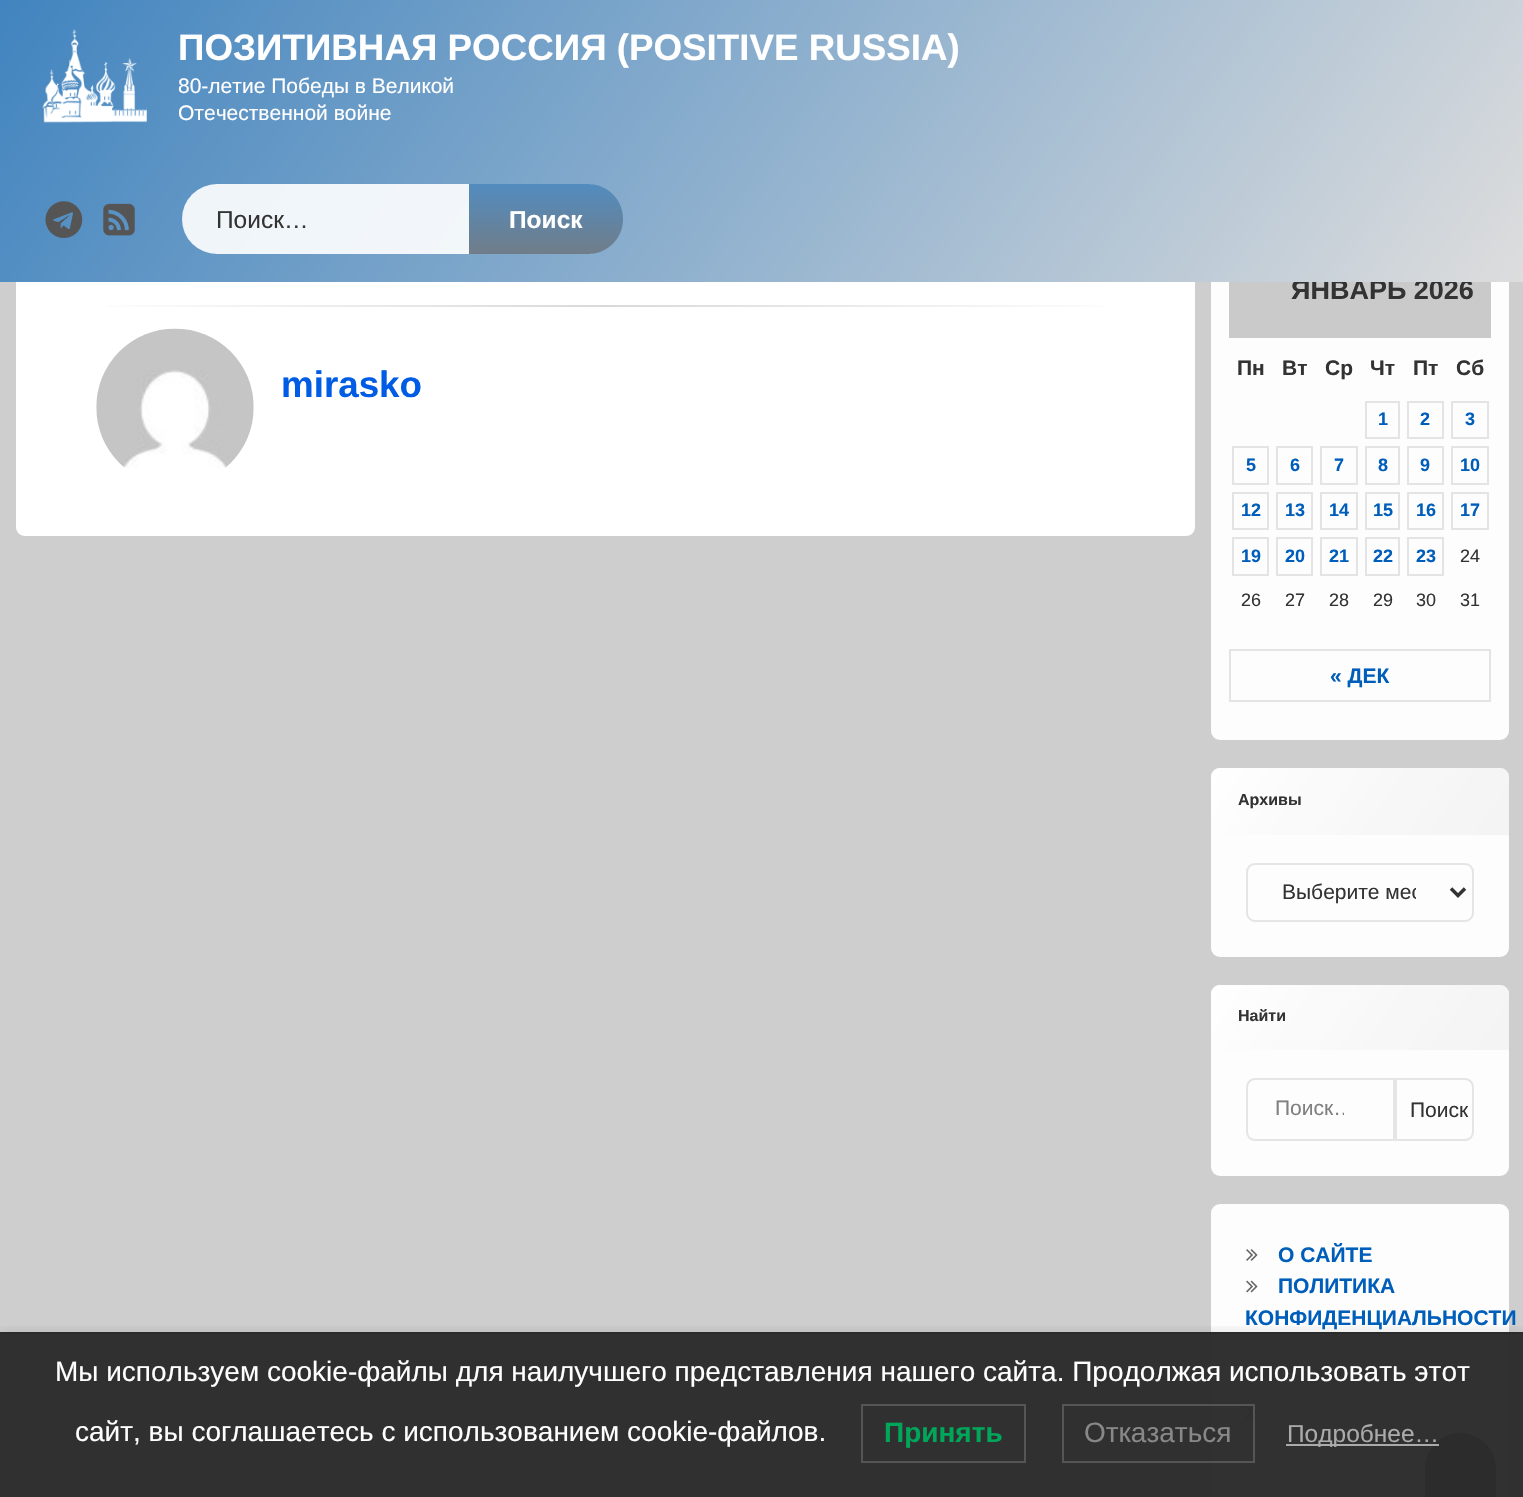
void draw(SkCanvas* canvas) {
  SkPaint paint;
  paint.setAntiAlias(true);
  auto face = [&](const char* family, int weight, float size, bool italic = false) {
    SkFontStyle style(weight, SkFontStyle::kNormal_Width,
      italic ? SkFontStyle::kItalic_Slant : SkFontStyle::kUpright_Slant);
    SkFont result(fontMgr->matchFamilyStyle(family, style), size);
    result.setSubpixel(true);
    return result;
  };
  auto paste = [&](const char* path, float x, float y, float w, float h) {
    auto image = SkImages::DeferredFromEncodedData(SkData::MakeFromFileName(path));
    canvas->drawImageRect(image, SkRect::MakeXYWH(x, y, w, h), SkSamplingOptions());
  };
  auto shape = [&](const char* data, bool evenOdd = false) {
    SkPath result = *SkParsePath::FromSVGString(data);
    if (evenOdd) result.setFillType(SkPathFillType::kEvenOdd);
    return result;
  };
  canvas->clear(0xffcecece);
  paint.setColor(0xff303030);
  canvas->drawRect(SkRect::MakeXYWH(0, 1334, 1523, 163), paint);
  paint.setColor(0xffffffff);
  canvas->drawPath(shape("M34-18H1177C1187-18 1195-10 1195 0V527C1195 532 1191 536 1186 536H25C20 536 16 532 16 527V0C16-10 24-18 34-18Z"), paint);
  {
    const SkColor colors[] = {0xffffffff, 0xffd9d9d9, 0xffffffff};
    const float stops[] = {0, 0.5f, 1};
    const SkPoint ends[] = {{72, 305}, {1139, 305}};
    paint.setShader(SkGradientShader::MakeLinear(ends, colors, stops, 3, SkTileMode::kClamp));
    paint.setAlpha(255);
  }
  canvas->drawRect(SkRect::MakeXYWH(107, 305, 997, 2), paint);
  paste("img/4.png", 96, 328, 158, 140);
  paint.setShader(nullptr);
  paint.setColor(0xfffdfdfd);
  canvas->drawRoundRect(SkRect::MakeXYWH(1211, 166, 298, 574), 9, 9, paint);
  paint.setColor(0xffcacaca);
  canvas->drawRect(SkRect::MakeXYWH(1229, 282, 262, 56), paint);
  paint.setStroke(true);
  paint.setStrokeWidth(2);
  paint.setColor(0xffe4e4e4);
  canvas->drawRect(SkRect::MakeXYWH(1366, 402, 33, 36), paint);
  canvas->drawRect(SkRect::MakeXYWH(1408, 402, 35, 36), paint);
  canvas->drawRect(SkRect::MakeXYWH(1452, 402, 36, 36), paint);
  canvas->drawRect(SkRect::MakeXYWH(1233, 447, 35, 37), paint);
  canvas->drawRect(SkRect::MakeXYWH(1277, 447, 35, 37), paint);
  canvas->drawRect(SkRect::MakeXYWH(1321, 447, 36, 37), paint);
  canvas->drawRect(SkRect::MakeXYWH(1366, 447, 33, 37), paint);
  canvas->drawRect(SkRect::MakeXYWH(1408, 447, 35, 37), paint);
  canvas->drawRect(SkRect::MakeXYWH(1452, 447, 36, 37), paint);
  canvas->drawRect(SkRect::MakeXYWH(1233, 493, 35, 36), paint);
  canvas->drawRect(SkRect::MakeXYWH(1277, 493, 35, 36), paint);
  canvas->drawRect(SkRect::MakeXYWH(1321, 493, 36, 36), paint);
  canvas->drawRect(SkRect::MakeXYWH(1366, 493, 33, 36), paint);
  canvas->drawRect(SkRect::MakeXYWH(1408, 493, 35, 36), paint);
  canvas->drawRect(SkRect::MakeXYWH(1452, 493, 36, 36), paint);
  canvas->drawRect(SkRect::MakeXYWH(1233, 538, 35, 37), paint);
  canvas->drawRect(SkRect::MakeXYWH(1277, 538, 35, 37), paint);
  canvas->drawRect(SkRect::MakeXYWH(1321, 538, 36, 37), paint);
  canvas->drawRect(SkRect::MakeXYWH(1366, 538, 33, 37), paint);
  canvas->drawRect(SkRect::MakeXYWH(1408, 538, 35, 37), paint);
  canvas->drawRect(SkRect::MakeXYWH(1230, 650, 260, 51), paint);
  paint.setStroke(false);
  paint.setColor(0xfffdfdfd);
  canvas->drawRoundRect(SkRect::MakeXYWH(1211, 768, 298, 189), 9, 9, paint);
  {
    const SkColor colors[] = {0xffffffff, 0xbff0f0f0};
    const float stops[] = {0, 1};
    const SkPoint ends[] = {{1244, 721}, {1475, 882}};
    paint.setShader(SkGradientShader::MakeLinear(ends, colors, stops, 2, SkTileMode::kClamp));
    paint.setAlpha(255);
  }
  canvas->drawPath(shape("M1220 768H1500C1505 768 1509 772 1509 777V835H1211V777C1211 772 1215 768 1220 768Z"), paint);
  paint.setStroke(true);
  paint.setShader(nullptr);
  paint.setColor(0xffe5e5e5);
  canvas->drawRoundRect(SkRect::MakeXYWH(1247, 864, 226, 57), 8, 8, paint);
  paint.setStrokeWidth(3.5f);
  paint.setColor(0xff333333);
  canvas->drawPath(shape("M1451 888.5L1458 895.5L1465 888.5"), paint);
  paint.setStroke(false);
  paint.setColor(0xfffdfdfd);
  canvas->drawRoundRect(SkRect::MakeXYWH(1211, 985, 298, 191), 9, 9, paint);
  {
    const SkColor colors[] = {0xffffffff, 0xbff0f0f0};
    const float stops[] = {0, 1};
    const SkPoint ends[] = {{1245, 937}, {1475, 1098}};
    paint.setShader(SkGradientShader::MakeLinear(ends, colors, stops, 2, SkTileMode::kClamp));
    paint.setAlpha(255);
  }
  canvas->drawPath(shape("M1220 985H1500C1505 985 1509 989 1509 994V1050H1211V994C1211 989 1215 985 1220 985Z"), paint);
  paint.setStroke(true);
  paint.setStrokeWidth(2);
  paint.setShader(nullptr);
  paint.setColor(0xffe5e5e5);
  canvas->drawPath(shape("M1255 1079H1394V1140H1255C1250.5 1140 1247 1136.5 1247 1132V1087C1247 1082.5 1250.5 1079 1255 1079Z"), paint);
  canvas->drawPath(shape("M1396 1079H1465C1469.5 1079 1473 1082.5 1473 1087V1132C1473 1136.5 1469.5 1140 1465 1140H1396Z"), paint);
  paint.setStroke(false);
  paint.setColor(0xfffdfdfd);
  canvas->drawRoundRect(SkRect::MakeXYWH(1211, 1204, 298, 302), 9, 9, paint);
  paint.setColor(0xff313131);
  canvas->drawRect(SkRect::MakeXYWH(1211, 1334, 298, 163), paint);
  paste("img/5.png", 1246, 1249, 12, 12);
  paste("img/6.png", 1246, 1280, 12, 13);
  paste("img/7.png", 1246, 1406, 12, 13);
  paint.setColor(0xbf2a2a2a);
  canvas->drawPath(shape("M1460.5 1433C1480 1433 1496 1449 1496 1468.5V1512H1425V1468.5C1425 1449 1441 1433 1460.5 1433Z"), paint);
  paste("img/8.png", 1453, 1458, 14, 14);
  canvas->save();
  canvas->clipRect(SkRect::MakeXYWH(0, 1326, 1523, 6));
  paint.setColor(0x1a000000);
  paint.setMaskFilter(SkMaskFilter::MakeBlur(kNormal_SkBlurStyle, 7));
  canvas->drawRect(SkRect::MakeXYWH(0, 1332, 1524, 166), paint);
  paint.setMaskFilter(nullptr);
  canvas->restore();
  paint.setColor(0xff2b2b2b);
  canvas->drawRect(SkRect::MakeXYWH(0, 1332, 1523, 2), paint);
  paint.setStroke(true);
  paint.setColor(0xff555555);
  canvas->drawRect(SkRect::MakeXYWH(862, 1405, 163, 57), paint);
  canvas->drawRect(SkRect::MakeXYWH(1063, 1405, 191, 57), paint);
  paint.setStroke(false);
  paint.setColor(0xffaaaaaa);
  canvas->drawRect(SkRect::MakeXYWH(1286, 1444, 153, 2), paint);
  auto f0 = face("Liberation Sans", 700, 36.75f);
  paint.setColor(0xff005ce4);
  canvas->drawString("mirasko", 281, 397, f0, paint);
  auto f1 = face("Liberation Sans", 700, 27);
  paint.setColor(0xff333333);
  canvas->drawString("ЯНВАРЬ 2026", 1291, 299, f1, paint);
  {
    const SkColor colors[] = {0xff4184bf, 0xffdddddd};
    const float stops[] = {0, 1};
    const SkPoint ends[] = {{185, -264}, {1340, 545}};
    paint.setShader(SkGradientShader::MakeLinear(ends, colors, stops, 2, SkTileMode::kClamp));
    paint.setAlpha(255);
  }
  canvas->drawRect(SkRect::MakeXYWH(0, 0, 1523, 282), paint);
  paint.setShader(nullptr);
  paint.setColor(0xe6ffffff);
  canvas->drawRoundRect(SkRect::MakeXYWH(182, 184, 438, 70), 35, 35, paint);
  {
    const SkColor colors[] = {0xff528cbf, 0xff707d89};
    const float stops[] = {0, 1};
    const SkPoint ends[] = {{546, 184}, {546, 254}};
    paint.setShader(SkGradientShader::MakeLinear(ends, colors, stops, 2, SkTileMode::kClamp));
    paint.setAlpha(255);
  }
  canvas->drawPath(shape("M469 184H588C607.5 184 623 199.5 623 219C623 238.5 607.5 254 588 254H469Z"), paint);
  auto f2 = face("Liberation Sans", 700, 24.5f);
  paint.setShader(nullptr);
  paint.setColor(0xffffffff);
  canvas->drawString("Поиск", 509, 228, f2, paint);
  auto f3 = face("Liberation Sans", 400, 24.5f);
  paint.setColor(0xff333333);
  canvas->drawString("Поиск…", 216, 228, f3, paint);
  paste("img/3.png", 103, 203, 32, 33);
  paste("img/2.png", 45, 201, 38, 37);
  auto f4 = face("Liberation Sans", 400, 21);
  paint.setColor(0xffffffff);
  canvas->drawString("Отечественной войне", 178, 120, f4, paint);
  canvas->drawString("80-летие Победы в Великой", 178, 93, f4, paint);
  canvas->drawString("ПОЗИТИВНАЯ РОССИЯ (POSITIVE RUSSIA)", 178, 60, f0, paint);
  paste("img/1.png", 42, 29, 105, 94);
  auto f5 = face("Liberation Sans", 700, 21);
  paint.setColor(0xff333333);
  {
    const struct { const char* s; float x, y; } items[] = {
      {"Пн", 1237, 375},
      {"Вт", 1282, 375},
      {"Ср", 1325, 375},
      {"Чт", 1370, 375},
      {"Пт", 1413, 375},
      {"Сб", 1456, 375},
    };
    for (auto [s, x, y] : items) {
      canvas->drawString(s, x, y, f5, paint);
    }
  }
  auto f6 = face("Liberation Sans", 700, 18);
  paint.setColor(0xff005ebb);
  {
    const struct { const char* s; float x, y; } items[] = {
      {"1", 1378, 425},
      {"2", 1420, 425},
      {"3", 1465, 425},
      {"5", 1246, 471},
      {"6", 1290, 471},
      {"7", 1334, 471},
      {"8", 1378, 471},
      {"9", 1420, 471},
      {"10", 1460, 471},
      {"12", 1241, 516},
      {"13", 1285, 516},
      {"14", 1329, 516},
      {"15", 1373, 516},
      {"16", 1416, 516},
      {"17", 1460, 516},
      {"19", 1241, 562},
      {"20", 1285, 562},
      {"21", 1329, 562},
      {"22", 1373, 562},
      {"23", 1416, 562},
    };
    for (auto [s, x, y] : items) {
      canvas->drawString(s, x, y, f6, paint);
    }
  }
  auto f7 = face("Liberation Sans", 400, 18);
  paint.setColor(0xff333333);
  {
    const struct { const char* s; float x, y; } items[] = {
      {"24", 1460, 562},
      {"26", 1241, 606},
      {"27", 1285, 606},
      {"28", 1329, 606},
      {"29", 1373, 606},
      {"30", 1416, 606},
      {"31", 1460, 606},
    };
    for (auto [s, x, y] : items) {
      canvas->drawString(s, x, y, f7, paint);
    }
  }
  paint.setColor(0xff005ebb);
  canvas->drawString("« ДЕК", 1330, 683, f5, paint);
  auto f8 = face("Liberation Sans", 700, 16);
  paint.setColor(0xff333333);
  canvas->drawString("Архивы", 1238, 805, f8, paint);
  canvas->save();
  canvas->clipRect(SkRect::MakeXYWH(1283, 879, 133, 28));
  canvas->drawString("Выберите мес", 1282, 899, f4, paint);
  canvas->restore();
  canvas->drawString("Найти", 1238, 1021, f8, paint);
  canvas->save();
  canvas->clipRect(SkRect::MakeXYWH(1276, 1096, 68, 24));
  paint.setColor(0xff808080);
  canvas->drawString("Поиск…", 1275, 1115, f4, paint);
  canvas->restore();
  paint.setColor(0xff333333);
  canvas->drawString("Поиск", 1410, 1117, f4, paint);
  paint.setColor(0xff005ebb);
  {
    const struct { const char* s; float x, y; } items[] = {
      {"О САЙТЕ", 1278, 1262},
      {"ПОЛИТИКА", 1278, 1293},
      {"КОНФИДЕНЦИАЛЬНОСТИ", 1245, 1325},
    };
    for (auto [s, x, y] : items) {
      canvas->drawString(s, x, y, f5, paint);
    }
  }
  auto f9 = face("Liberation Sans", 400, 28);
  paint.setColor(0xffffffff);
  canvas->drawString("Мы используем cookie-файлы для наилучшего представления нашего сайта. Продолжая использовать этот", 55, 1381, f9, paint);
  canvas->drawString("сайт, вы соглашаетесь с использованием cookie-файлов.", 75, 1441, f9, paint);
  auto f10 = face("Liberation Sans", 700, 28);
  paint.setColor(0xff00a65a);
  canvas->drawString("Принять", 884, 1442, f10, paint);
  paint.setColor(0xff888888);
  canvas->drawString("Отказаться", 1084, 1442, f9, paint);
  paint.setColor(0xffaaaaaa);
  canvas->drawString("Подробнее…", 1287, 1442, f3, paint);
}
